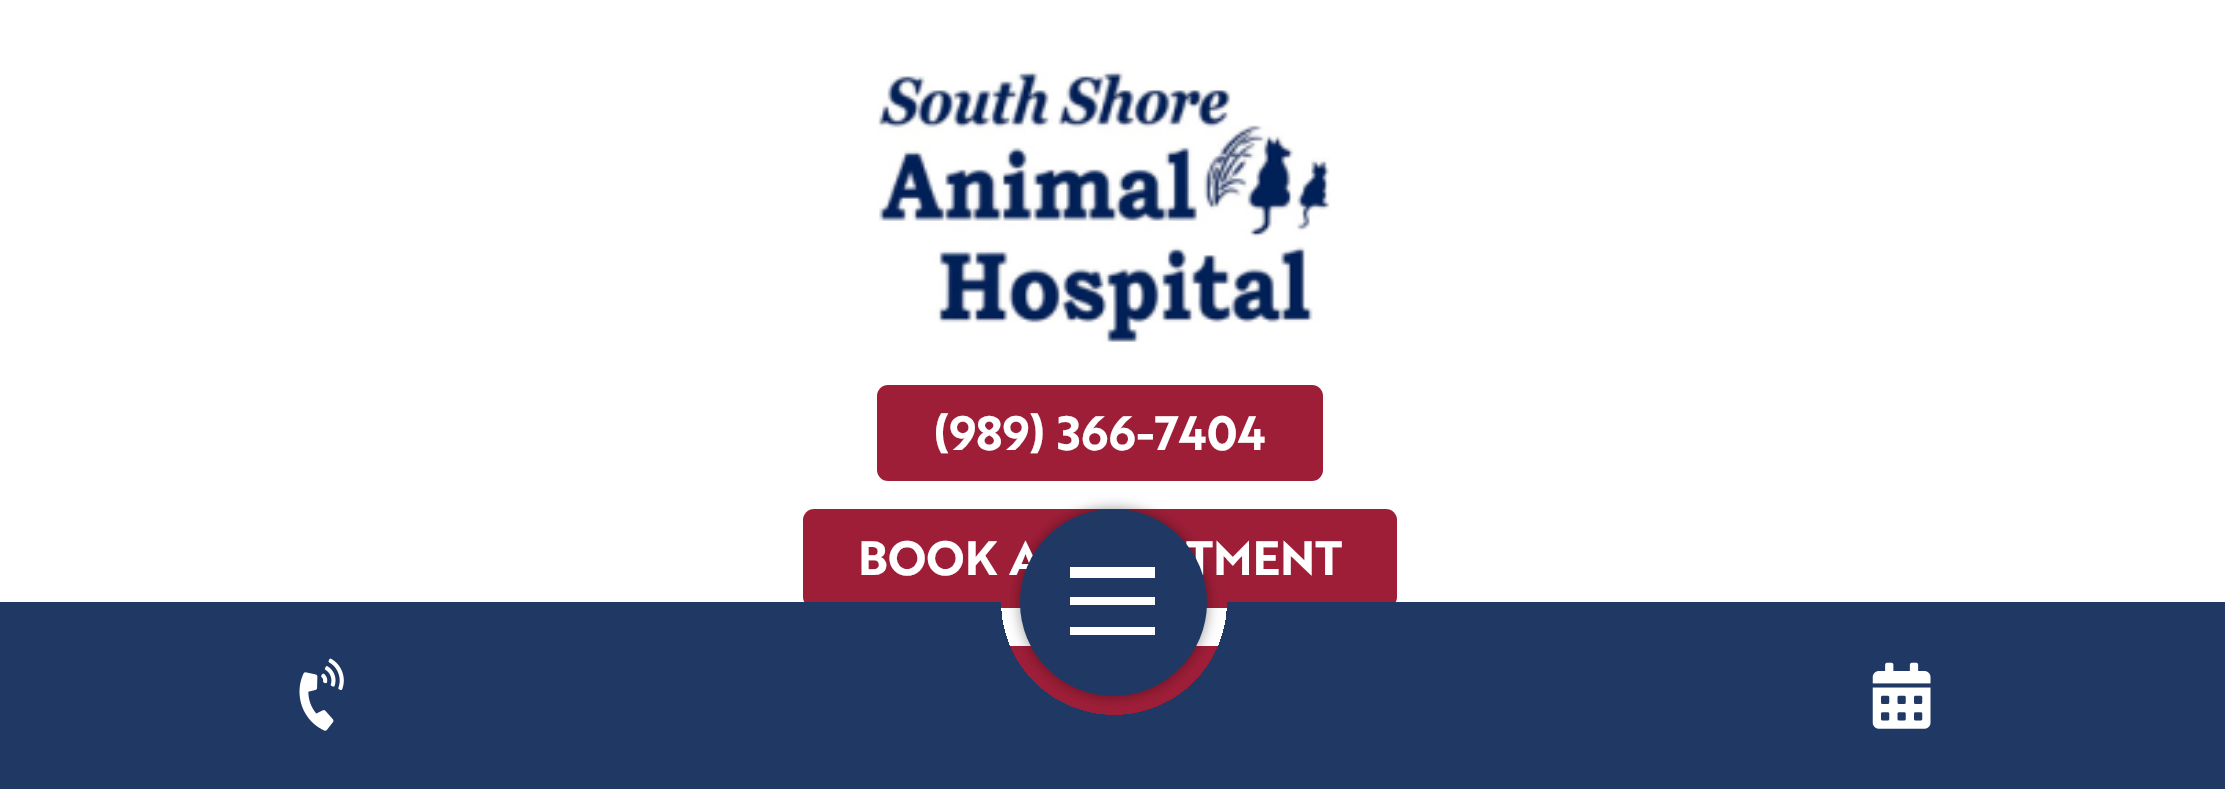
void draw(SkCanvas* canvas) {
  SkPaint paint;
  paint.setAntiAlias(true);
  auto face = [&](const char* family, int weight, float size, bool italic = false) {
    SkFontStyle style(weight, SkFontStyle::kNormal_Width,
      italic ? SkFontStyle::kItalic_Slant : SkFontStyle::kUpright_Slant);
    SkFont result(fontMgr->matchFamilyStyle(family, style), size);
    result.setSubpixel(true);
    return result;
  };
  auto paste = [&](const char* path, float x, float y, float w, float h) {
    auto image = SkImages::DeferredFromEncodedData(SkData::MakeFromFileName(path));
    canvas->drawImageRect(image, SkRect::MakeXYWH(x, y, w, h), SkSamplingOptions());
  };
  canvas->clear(0xffffffff);
  paste("img/1.png", 877, 70, 454, 272);
  paint.setColor(0xff9e1e38);
  canvas->drawRoundRect(SkRect::MakeXYWH(877, 385, 446, 96), 11, 11, paint);
  canvas->drawRoundRect(SkRect::MakeXYWH(803, 509, 594, 99), 11, 11, paint);
  canvas->drawRect(SkRect::MakeXYWH(1010, 646, 208, 69), paint);
  {
    const SkColor colors[] = {0x00203864, 0xff203864};
    const float stops[] = {0.1f, 0.1f};
    paint.setShader(SkGradientShader::MakeRadial({1114, 602}, 1129, colors, stops, 2, SkTileMode::kClamp));
    paint.setAlpha(255);
  }
  canvas->drawRect(SkRect::MakeXYWH(0, 602, 2225, 187), paint);
  paste("img/2.png", 299, 658, 45, 73);
  paint.setShader(nullptr);
  paint.setColor(0x66000000);
  paint.setMaskFilter(SkMaskFilter::MakeBlur(kNormal_SkBlurStyle, 7));
  canvas->drawRoundRect(SkRect::MakeXYWH(1020, 509, 187, 187), 93.5f, 93.5f, paint);
  paint.setMaskFilter(nullptr);
  paste("img/3.png", 1872, 662, 59, 67);
  auto f0 = face("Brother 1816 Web", 700, 46.75f);
  paint.setColor(0xffffffff);
  {
    const struct { const char* s; float x, y; } items[] = {
      {"(989) 366-7404", 933, 450},
      {"BOOK A", 858, 575},
      {"TMENT", 1186, 575},
    };
    for (auto [s, x, y] : items) {
      canvas->drawString(s, x, y, f0, paint);
    }
  }
  paint.setColor(0xff203864);
  canvas->drawCircle(1113.5f, 602.5f, 93.5f, paint);
  {
    const struct { float x, y, w, h; SkColor color; } items[] = {
      {1070, 597, 85, 8, 0xffffffff},
      {1070, 567, 85, 11, 0xffffffff},
      {1070, 627, 85, 8, 0xffffffff},
    };
    for (auto [x, y, w, h, color] : items) {
      paint.setColor(color);
      canvas->drawRect(SkRect::MakeXYWH(x, y, w, h), paint);
    }
  }
}
